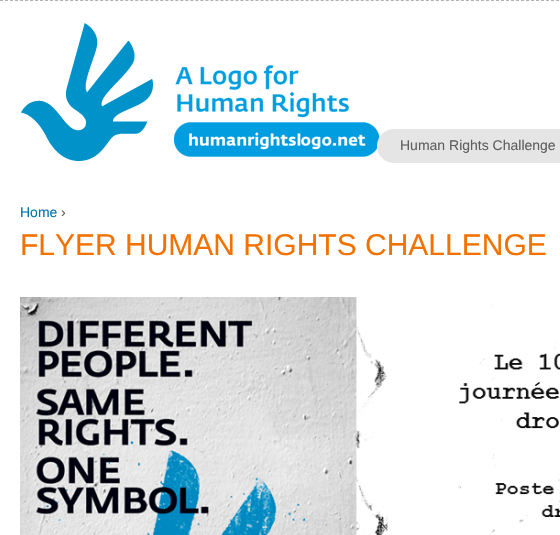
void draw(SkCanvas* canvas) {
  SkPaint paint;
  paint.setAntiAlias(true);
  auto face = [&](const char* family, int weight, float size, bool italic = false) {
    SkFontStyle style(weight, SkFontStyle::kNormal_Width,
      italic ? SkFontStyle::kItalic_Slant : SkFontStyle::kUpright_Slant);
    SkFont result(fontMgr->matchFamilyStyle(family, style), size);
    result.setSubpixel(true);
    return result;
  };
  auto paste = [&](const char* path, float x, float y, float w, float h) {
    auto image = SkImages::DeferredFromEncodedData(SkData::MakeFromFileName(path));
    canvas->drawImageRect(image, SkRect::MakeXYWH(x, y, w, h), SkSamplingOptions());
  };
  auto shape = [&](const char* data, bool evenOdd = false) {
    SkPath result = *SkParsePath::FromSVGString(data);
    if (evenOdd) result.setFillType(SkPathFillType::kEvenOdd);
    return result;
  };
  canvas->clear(0xffffffff);
  paint.setStroke(true);
  paint.setStrokeWidth(1);
  paint.setColor(0xffb0b0b0);
  paint.setPathEffect(SkDashPathEffect::Make({{3, 2.01f}}, 0));
  canvas->drawPath(shape("M0 .5H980"), paint);
  paint.setPathEffect(nullptr);
  paste("img/1.png", 21, 23, 132, 138);
  paste("img/2.png", 174, 65, 206, 92);
  paste("img/3.png", 377, 129, 16, 34);
  paint.setStroke(false);
  paint.setColor(0xffe5e5e5);
  canvas->drawRect(SkRect::MakeXYWH(393, 129, 167, 34), paint);
  paste("img/4.png", 20, 297, 540, 238);
  auto f0 = face("Liberation Sans", 400, 14);
  paint.setColor(0xff5f5f5f);
  canvas->drawString("Human Rights Challenge", 400, 150, f0, paint);
  paint.setColor(0xff0077ab);
  canvas->drawString("Home", 20, 217, f0, paint);
  paint.setColor(0xff5f5f5f);
  canvas->drawString("›", 61, 217, f0, paint);
  auto f1 = face("Liberation Sans", 400, 30);
  paint.setColor(0xfff27200);
  canvas->drawString("FLYER HUMAN RIGHTS CHALLENGE", 20, 255, f1, paint);
}
